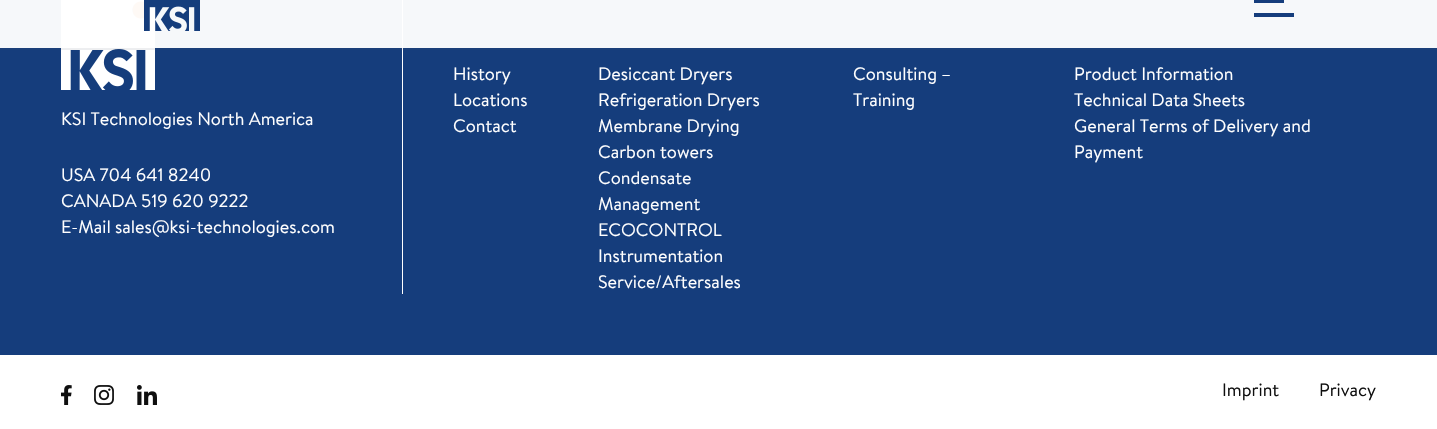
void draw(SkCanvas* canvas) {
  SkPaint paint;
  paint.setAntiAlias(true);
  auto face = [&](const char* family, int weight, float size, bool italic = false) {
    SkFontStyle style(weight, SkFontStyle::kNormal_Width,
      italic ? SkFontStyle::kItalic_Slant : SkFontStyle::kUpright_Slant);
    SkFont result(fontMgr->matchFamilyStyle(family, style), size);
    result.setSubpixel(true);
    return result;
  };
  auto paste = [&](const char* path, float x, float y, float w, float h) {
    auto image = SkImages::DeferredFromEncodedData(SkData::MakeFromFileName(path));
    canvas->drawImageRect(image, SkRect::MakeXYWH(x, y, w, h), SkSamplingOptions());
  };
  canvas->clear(0xffffffff);
  paint.setColor(0xff153d7c);
  canvas->drawRect(SkRect::MakeXYWH(0, 0, 1437, 355), paint);
  paste("img/2.png", 61, 0, 94, 90);
  {
    const struct { float x, y, w, h; SkColor color; } items[] = {
      {402, 0, 1, 294, 0xffffffff},
      {0, 48, 1437, 2, 0x1a4b5c6a},
      {0, 0, 1437, 48, 0xf5ffffff},
    };
    for (auto [x, y, w, h, color] : items) {
      paint.setColor(color);
      canvas->drawRect(SkRect::MakeXYWH(x, y, w, h), paint);
    }
  }
  paste("img/1.png", 144, 0, 56, 31);
  paint.setColor(0xff153d7c);
  canvas->drawRect(SkRect::MakeXYWH(1254, 0, 30, 3), paint);
  canvas->drawRect(SkRect::MakeXYWH(1254, 13, 40, 4), paint);
  paste("img/3.png", 61, 385, 11, 20);
  paste("img/4.png", 94, 385, 20, 20);
  paste("img/5.png", 137, 385, 20, 20);
  auto f0 = face("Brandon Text", 400, 18);
  paint.setColor(0xffffffff);
  {
    const struct { const char* s; float x, y; } items[] = {
      {"KSI Technologies North America", 61, 125},
      {"USA 704 641 8240", 61, 181},
      {"CANADA 519 620 9222", 61, 207},
      {"E-Mail sales@ksi-technologies.com", 61, 233},
      {"History", 453, 80},
      {"Locations", 453, 106},
      {"Contact", 453, 132},
      {"Desiccant Dryers", 598, 80},
      {"Refrigeration Dryers", 598, 106},
      {"Membrane Drying", 598, 132},
      {"Carbon towers", 598, 158},
      {"Condensate", 598, 184},
      {"Management", 598, 210},
      {"ECOCONTROL", 598, 236},
      {"Instrumentation", 598, 262},
      {"Service/Aftersales", 598, 288},
      {"Consulting –", 853, 80},
      {"Training", 853, 106},
      {"Product Information", 1074, 80},
      {"Technical Data Sheets", 1074, 106},
      {"General Terms of Delivery and", 1074, 132},
      {"Payment", 1074, 158},
    };
    for (auto [s, x, y] : items) {
      canvas->drawString(s, x, y, f0, paint);
    }
  }
  paint.setColor(0xff0f0f0f);
  canvas->drawString("Imprint", 1222, 396, f0, paint);
  canvas->drawString("Privacy", 1319, 396, f0, paint);
}
